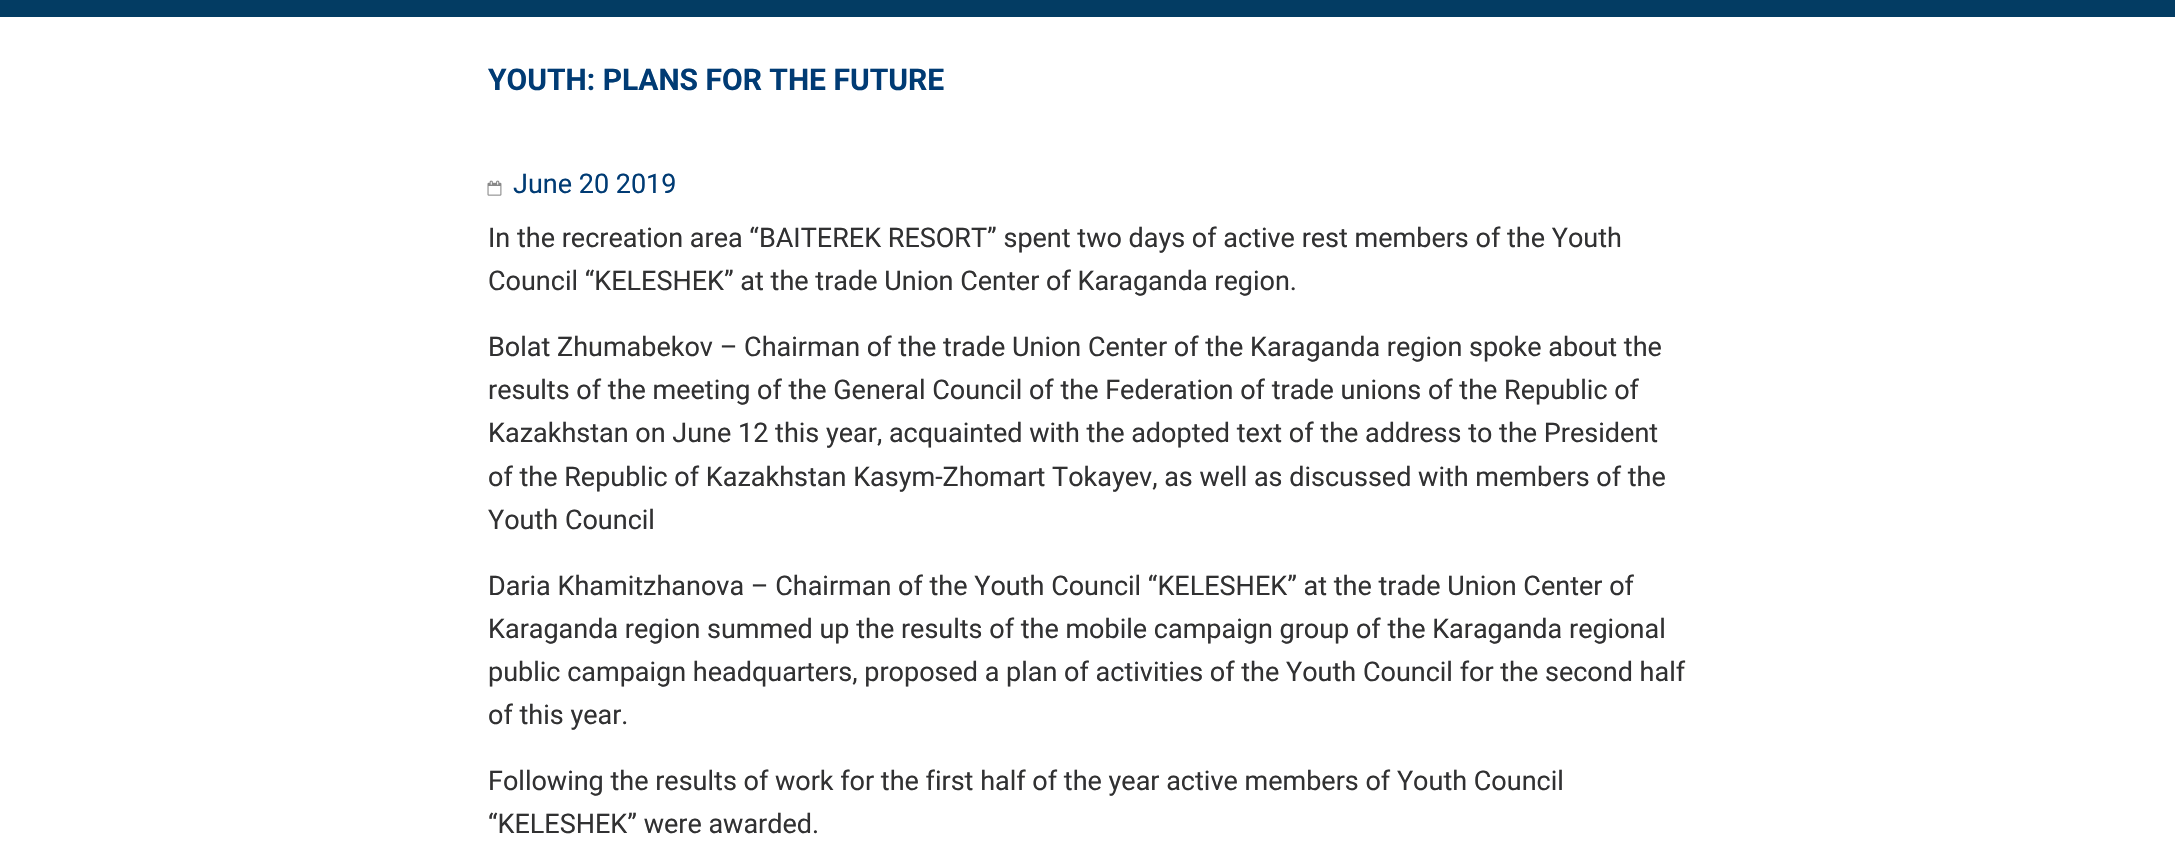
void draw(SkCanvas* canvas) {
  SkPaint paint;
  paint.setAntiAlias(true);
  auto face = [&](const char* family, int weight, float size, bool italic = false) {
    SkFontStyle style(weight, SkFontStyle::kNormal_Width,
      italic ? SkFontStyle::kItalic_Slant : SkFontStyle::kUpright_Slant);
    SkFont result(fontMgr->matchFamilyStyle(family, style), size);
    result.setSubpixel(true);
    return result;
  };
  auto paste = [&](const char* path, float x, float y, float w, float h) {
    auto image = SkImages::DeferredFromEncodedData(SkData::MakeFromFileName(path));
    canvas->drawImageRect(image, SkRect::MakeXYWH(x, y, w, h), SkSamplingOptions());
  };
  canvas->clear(0xff033c63);
  paint.setColor(0xffffffff);
  canvas->drawRect(SkRect::MakeXYWH(0, 17, 2175, 850), paint);
  paste("img/1.png", 487, 180, 15, 16);
  auto f0 = face("Roboto", 700, 30);
  paint.setColor(0xff003b74);
  canvas->drawString("YOUTH: PLANS FOR THE FUTURE", 488, 90, f0, paint);
  auto f1 = face("Roboto", 400, 27);
  canvas->drawString("June 20 2019", 513, 193, f1, paint);
  paint.setColor(0xff313132);
  {
    const struct { const char* s; float x, y; } items[] = {
      {"In the recreation area “BAITEREK RESORT” spent two days of active rest members of the Youth", 488, 247},
      {"Council “KELESHEK” at the trade Union Center of Karaganda region.", 488, 290},
      {"Bolat Zhumabekov – Chairman of the trade Union Center of the Karaganda region spoke about the", 488, 356},
      {"results of the meeting of the General Council of the Federation of trade unions of the Republic of", 488, 399},
      {"Kazakhstan on June 12 this year, acquainted with the adopted text of the address to the President", 488, 442},
      {"of the Republic of Kazakhstan Kasym-Zhomart Tokayev, as well as discussed with members of the", 488, 486},
      {"Youth Council", 488, 529},
      {"Daria Khamitzhanova – Chairman of the Youth Council “KELESHEK” at the trade Union Center of", 488, 595},
      {"Karaganda region summed up the results of the mobile campaign group of the Karaganda regional", 488, 638},
      {"public campaign headquarters, proposed a plan of activities of the Youth Council for the second half", 488, 681},
      {"of this year.", 488, 724},
      {"Following the results of work for the first half of the year active members of Youth Council", 488, 790},
      {"“KELESHEK” were awarded.", 488, 833},
    };
    for (auto [s, x, y] : items) {
      canvas->drawString(s, x, y, f1, paint);
    }
  }
}
